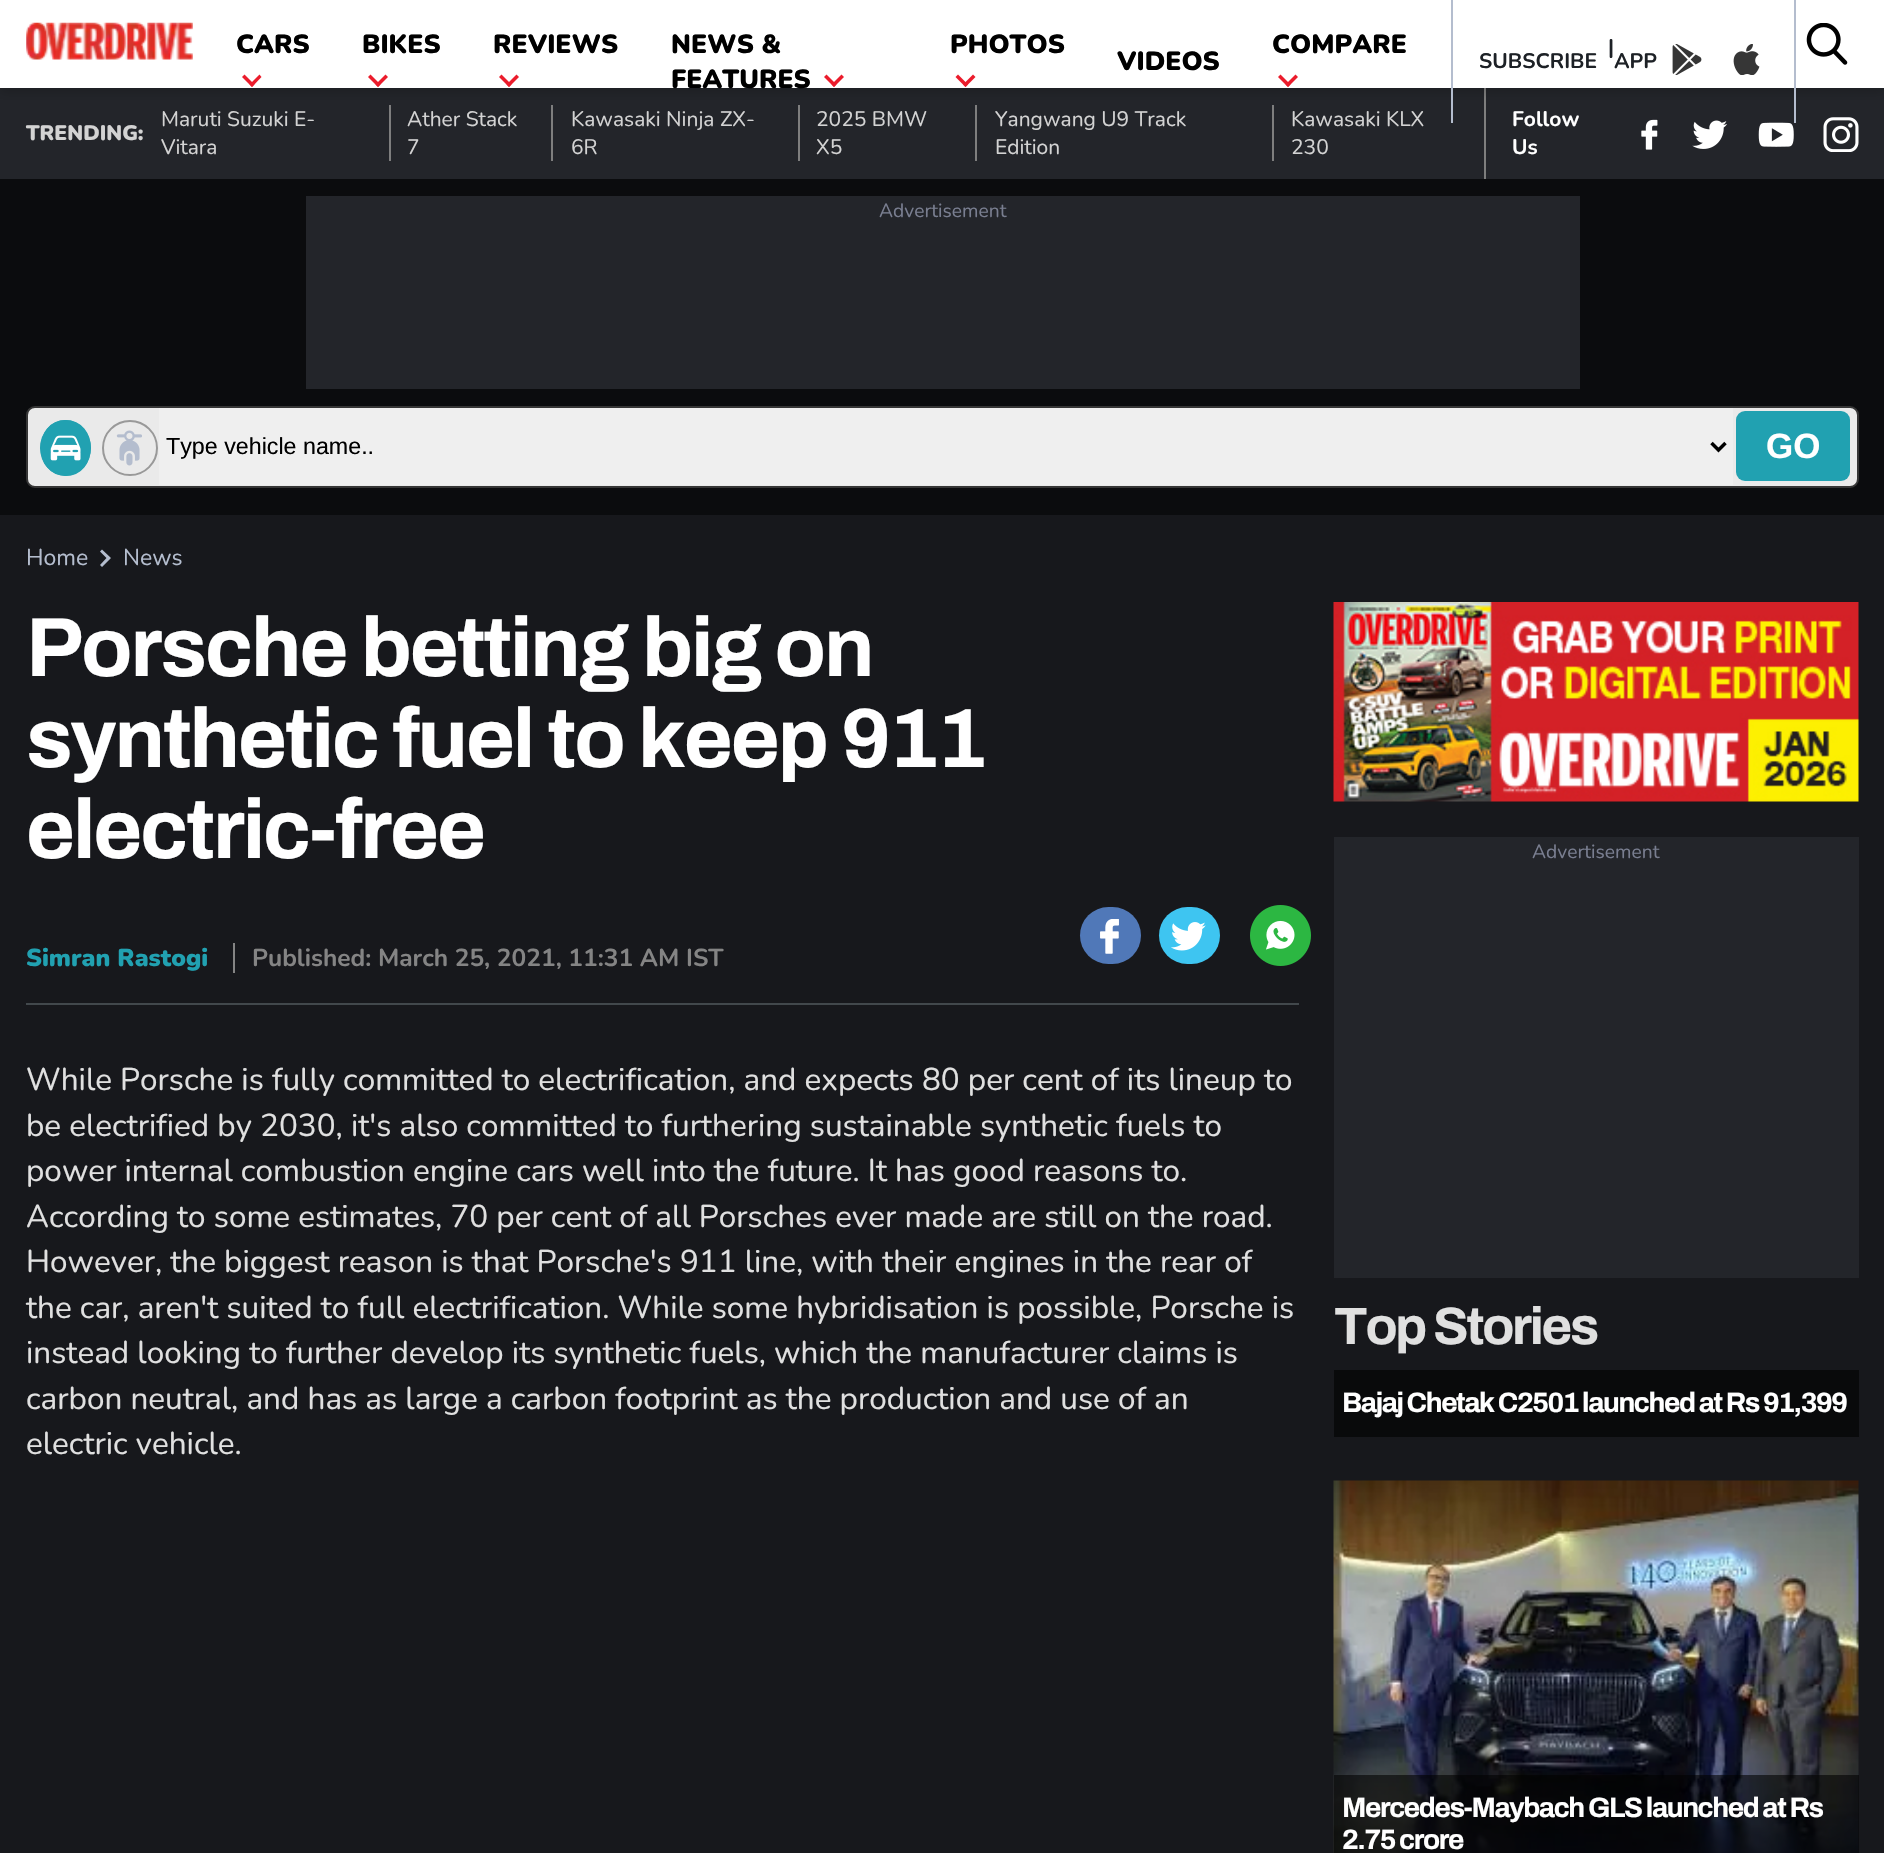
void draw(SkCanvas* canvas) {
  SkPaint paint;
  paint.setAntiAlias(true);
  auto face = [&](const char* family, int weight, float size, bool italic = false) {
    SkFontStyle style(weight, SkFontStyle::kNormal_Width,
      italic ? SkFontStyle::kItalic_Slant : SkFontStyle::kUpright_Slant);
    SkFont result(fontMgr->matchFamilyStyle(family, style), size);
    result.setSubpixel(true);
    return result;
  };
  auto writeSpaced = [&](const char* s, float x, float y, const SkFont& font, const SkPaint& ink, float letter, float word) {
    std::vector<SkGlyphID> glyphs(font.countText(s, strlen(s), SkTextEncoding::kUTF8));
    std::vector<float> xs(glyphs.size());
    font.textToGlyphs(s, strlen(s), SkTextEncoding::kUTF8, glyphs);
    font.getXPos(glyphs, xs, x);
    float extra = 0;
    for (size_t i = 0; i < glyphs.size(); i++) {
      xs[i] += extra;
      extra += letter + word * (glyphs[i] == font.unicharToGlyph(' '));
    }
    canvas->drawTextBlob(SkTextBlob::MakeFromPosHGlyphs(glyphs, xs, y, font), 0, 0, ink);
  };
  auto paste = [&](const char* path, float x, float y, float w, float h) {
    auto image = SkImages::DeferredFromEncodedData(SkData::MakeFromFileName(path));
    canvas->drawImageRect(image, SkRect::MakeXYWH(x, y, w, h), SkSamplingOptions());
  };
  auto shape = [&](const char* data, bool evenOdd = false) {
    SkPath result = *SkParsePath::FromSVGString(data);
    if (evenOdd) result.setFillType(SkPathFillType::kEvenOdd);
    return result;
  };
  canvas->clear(0xff0b0c0e);
  {
    const struct { float x, y, w, h; SkColor color; } items[] = {
      {0, 88, 1884, 91, 0xff23252a},
      {389, 105, 2, 56, 0xff7e7e7e},
      {551, 105, 2, 56, 0xff7e7e7e},
      {798, 105, 2, 56, 0xff7e7e7e},
      {975, 105, 2, 56, 0xff7e7e7e},
      {1272, 105, 2, 56, 0xff7e7e7e},
      {1484, 88, 2, 91, 0xff7e7e7e},
    };
    for (auto [x, y, w, h, color] : items) {
      paint.setColor(color);
      canvas->drawRect(SkRect::MakeXYWH(x, y, w, h), paint);
    }
  }
  paint.setColor(0x29000000);
  paint.setMaskFilter(SkMaskFilter::MakeBlur(kNormal_SkBlurStyle, 5));
  canvas->drawRect(SkRect::MakeXYWH(0, 5, 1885, 88), paint);
  paint.setMaskFilter(nullptr);
  paint.setColor(0xffffffff);
  canvas->drawRect(SkRect::MakeXYWH(0, 0, 1884, 88), paint);
  paste("img/1.png", 26, 22, 167, 38);
  paint.setColor(0xffeb1c2c);
  canvas->drawPath(shape("M259.5 74.5L261.5 77L252 87L249.5 84.5Z"), paint);
  canvas->drawPath(shape("M244.5 74.5L254.5 84.5L252 87L242 77Z"), paint);
  canvas->drawPath(shape("M385.5 74.5L388 77L378 87L375.5 84.5Z"), paint);
  canvas->drawPath(shape("M370.5 74.5L380.5 84.5L378 87L368 77Z"), paint);
  canvas->drawPath(shape("M516.5 74.5L519 77L509 87L506.5 84.5Z"), paint);
  canvas->drawPath(shape("M501.5 74.5L511.5 84.5L509 87L499 77Z"), paint);
  canvas->drawPath(shape("M841.5 74.5L844 77L834 87L831.5 84.5Z"), paint);
  canvas->drawPath(shape("M826.5 74.5L836.5 84.5L834 87L824 77Z"), paint);
  canvas->drawPath(shape("M973 74.5L975.5 77L965.5 87L963 84.5Z"), paint);
  canvas->drawPath(shape("M958 74.5L968 84.5L965.5 87L955.5 77Z"), paint);
  canvas->drawPath(shape("M1295.5 74.5L1298 77L1288 87L1285.5 84.5Z"), paint);
  canvas->drawPath(shape("M1280.5 74.5L1290.5 84.5L1288 87L1278 77Z"), paint);
  paint.setColor(0xffb4bdce);
  canvas->drawRect(SkRect::MakeXYWH(1794, 0, 2, 123), paint);
  canvas->drawRect(SkRect::MakeXYWH(1451, 0, 2, 123), paint);
  paste("img/2.png", 1672, 44, 30, 31);
  paste("img/3.png", 1733, 44, 27, 31);
  paste("img/4.png", 1806, 23, 42, 42);
  paste("img/5.png", 1641, 119, 17, 31);
  paste("img/6.png", 1692, 120, 35, 29);
  paste("img/7.png", 1758, 122, 36, 25);
  paste("img/8.png", 1823, 117, 36, 35);
  paint.setColor(0xff23252a);
  canvas->drawRect(SkRect::MakeXYWH(306, 196, 1274, 193), paint);
  paint.setColor(0xffeaeaea);
  canvas->drawRoundRect(SkRect::MakeXYWH(27, 407, 1831, 80), 8, 8, paint);
  paint.setStroke(true);
  paint.setStrokeWidth(2);
  paint.setColor(0xff363636);
  canvas->drawRoundRect(SkRect::MakeXYWH(27, 407, 1831, 80), 8, 8, paint);
  paint.setStroke(false);
  paint.setColor(0xff21a1b1);
  canvas->drawOval(SkRect::MakeXYWH(40, 420, 51, 56), paint);
  paint.setStroke(true);
  paint.setStrokeWidth(1.8f);
  canvas->drawPath(shape("M65.5 421C98 421 98 475 65.5 475C33.5 475 33.5 421 65.5 421Z"), paint);
  paste("img/9.png", 50, 435, 31, 26);
  paint.setStrokeWidth(2);
  paint.setColor(0xff999999);
  canvas->drawCircle(130, 448, 27, paint);
  paste("img/10.png", 116, 430, 26, 36);
  paint.setStroke(false);
  paint.setColor(0xffefefef);
  canvas->drawRect(SkRect::MakeXYWH(159, 408, 1574, 77), paint);
  paint.setStroke(true);
  paint.setStrokeWidth(3.5f);
  paint.setColor(0xff000000);
  canvas->drawPath(shape("M1711.5 443L1718.5 450L1725.5 443"), paint);
  paint.setStroke(false);
  paint.setColor(0xff21a1b1);
  canvas->drawRoundRect(SkRect::MakeXYWH(1736, 411, 114, 70), 9, 9, paint);
  paint.setColor(0xff17181c);
  canvas->drawRect(SkRect::MakeXYWH(0, 515, 1884, 1338), paint);
  paint.setColor(0xffb4bdce);
  canvas->drawPath(shape("M100 565L106.5 558L100 551.5L102 549.5L111 558L102 567Z"), paint);
  paint.setColor(0xff42484c);
  canvas->drawRect(SkRect::MakeXYWH(26, 1003, 1273, 2), paint);
  paint.setColor(0xff848484);
  canvas->drawRect(SkRect::MakeXYWH(233, 943, 2, 30), paint);
  paint.setColor(0xff5078b8);
  canvas->drawRoundRect(SkRect::MakeXYWH(1080, 907, 61, 57), 28.5f, 28.5f, paint);
  paste("img/11.png", 1100, 919, 19, 35);
  paint.setColor(0xff3ec5f1);
  canvas->drawRoundRect(SkRect::MakeXYWH(1159, 907, 61, 57), 28.5f, 28.5f, paint);
  paste("img/12.png", 1171, 922, 35, 29);
  paste("img/13.png", 1250, 905, 61, 61);
  paste("img/14.png", 1333, 602, 526, 200);
  paint.setColor(0xff23252a);
  canvas->drawRect(SkRect::MakeXYWH(1334, 837, 525, 441), paint);
  paint.setColor(0xff090a0b);
  canvas->drawRect(SkRect::MakeXYWH(1334, 1370, 525, 67), paint);
  paste("img/15.png", 1333, 1480, 526, 373);
  paint.setColor(0x96000000);
  canvas->drawRect(SkRect::MakeXYWH(1334, 1775, 525, 78), paint);
  auto f0 = face("Nunito", 900, 26.25f);
  paint.setColor(0xff000000);
  {
    const struct { const char* s; float x, y; } items[] = {
      {"CARS", 236, 53},
      {"BIKES", 362, 53},
      {"REVIEWS", 493, 53},
      {"NEWS &", 671, 53},
      {"FEATURES", 671, 88},
      {"PHOTOS", 950, 53},
      {"COMPARE", 1272, 53},
      {"VIDEOS", 1117, 70},
    };
    for (auto [s, x, y] : items) {
      canvas->drawString(s, x, y, f0, paint);
    }
  }
  auto f1 = face("Nunito", 700, 21);
  paint.setColor(0xff1d2126);
  {
    const struct { const char* s; float x, y; } items[] = {
      {"SUBSCRIBE", 1479, 68},
      {"|", 1608, 54},
      {"APP", 1614, 68},
    };
    for (auto [s, x, y] : items) {
      canvas->drawString(s, x, y, f1, paint);
    }
  }
  auto f2 = face("Nunito", 900, 21);
  paint.setColor(0xffd3d3d3);
  canvas->drawString("TRENDING:", 26, 140, f2, paint);
  auto f3 = face("Nunito", 400, 21);
  {
    const struct { const char* s; float x, y; } items[] = {
      {"Maruti Suzuki E-", 161, 126},
      {"Vitara", 161, 154},
      {"Ather Stack", 407, 126},
      {"7", 407, 154},
      {"Kawasaki Ninja ZX-", 571, 126},
      {"6R", 571, 154},
      {"2025 BMW", 816, 126},
      {"X5", 816, 154},
      {"Yangwang U9 Track", 995, 126},
      {"Edition", 995, 154},
      {"Kawasaki KLX", 1291, 126},
      {"230", 1291, 154},
    };
    for (auto [s, x, y] : items) {
      canvas->drawString(s, x, y, f3, paint);
    }
  }
  paint.setColor(0xffffffff);
  canvas->drawString("Follow", 1512, 126, f1, paint);
  canvas->drawString("Us", 1512, 154, f1, paint);
  auto f4 = face("Nunito", 400, 19.25f);
  paint.setColor(0xff797e90);
  canvas->drawString("Advertisement", 879, 217, f4, paint);
  auto f5 = face("Liberation Sans", 400, 23.25f);
  paint.setColor(0xff000000);
  canvas->drawString("Type vehicle name..", 166, 454, f5, paint);
  auto f6 = face("Liberation Sans", 700, 35);
  paint.setColor(0xffffffff);
  canvas->drawString("GO", 1766, 458, f6, paint);
  auto f7 = face("Nunito", 400, 23);
  paint.setColor(0xffb4bdce);
  canvas->drawString("Home", 26, 565, f7, paint);
  canvas->drawString("News", 123, 565, f7, paint);
  auto f8 = face("Archivo", 700, 84);
  paint.setColor(0xffffffff);
  {
    const struct { const char* s; float x, y; } items[] = {
      {"Porsche betting big on", 26, 676},
      {"synthetic fuel to keep 911", 26, 767},
      {"electric-free", 26, 858},
    };
    for (auto [s, x, y] : items) {
      writeSpaced(s, x, y, f8, paint, -2.1f, 0);
    }
  }
  auto f9 = face("Nunito", 900, 24.5f);
  paint.setColor(0xff21a1b1);
  canvas->drawString("Simran Rastogi", 26, 966, f9, paint);
  auto f10 = face("Nunito", 700, 24.5f);
  paint.setColor(0xff848484);
  canvas->drawString("Published: March 25, 2021, 11:31 AM IST", 252, 966, f10, paint);
  auto f11 = face("Nunito", 400, 31.5f);
  paint.setColor(0xffe0e0e0);
  {
    const struct { const char* s; float x, y; } items[] = {
      {"While Porsche is fully committed to electrification, and expects 80 per cent of its lineup to", 26, 1090},
      {"be electrified by 2030, it's also committed to furthering sustainable synthetic fuels to", 26, 1136},
      {"power internal combustion engine cars well into the future. It has good reasons to.", 26, 1181},
      {"According to some estimates, 70 per cent of all Porsches ever made are still on the road.", 26, 1227},
      {"However, the biggest reason is that Porsche's 911 line, with their engines in the rear of", 26, 1272},
      {"the car, aren't suited to full electrification. While some hybridisation is possible, Porsche is", 26, 1318},
      {"instead looking to further develop its synthetic fuels, which the manufacturer claims is", 26, 1363},
      {"carbon neutral, and has as large a carbon footprint as the production and use of an", 26, 1409},
      {"electric vehicle.", 26, 1454},
    };
    for (auto [s, x, y] : items) {
      canvas->drawString(s, x, y, f11, paint);
    }
  }
  paint.setColor(0xff797e90);
  canvas->drawString("Advertisement", 1532, 858, f4, paint);
  auto f12 = face("Archivo", 700, 52.5f);
  paint.setColor(0xffe0e0e0);
  writeSpaced("Top Stories", 1334, 1344, f12, paint, -2.25f, 0);
  auto f13 = face("Archivo", 700, 28);
  paint.setColor(0xffffffff);
  {
    const struct { const char* s; float x, y; } items[] = {
      {"Bajaj Chetak C2501 launched at Rs 91,399", 1342, 1412},
      {"Mercedes-Maybach GLS launched at Rs", 1342, 1817},
      {"2.75 crore", 1342, 1849},
    };
    for (auto [s, x, y] : items) {
      writeSpaced(s, x, y, f13, paint, -1.4f, 0);
    }
  }
}
